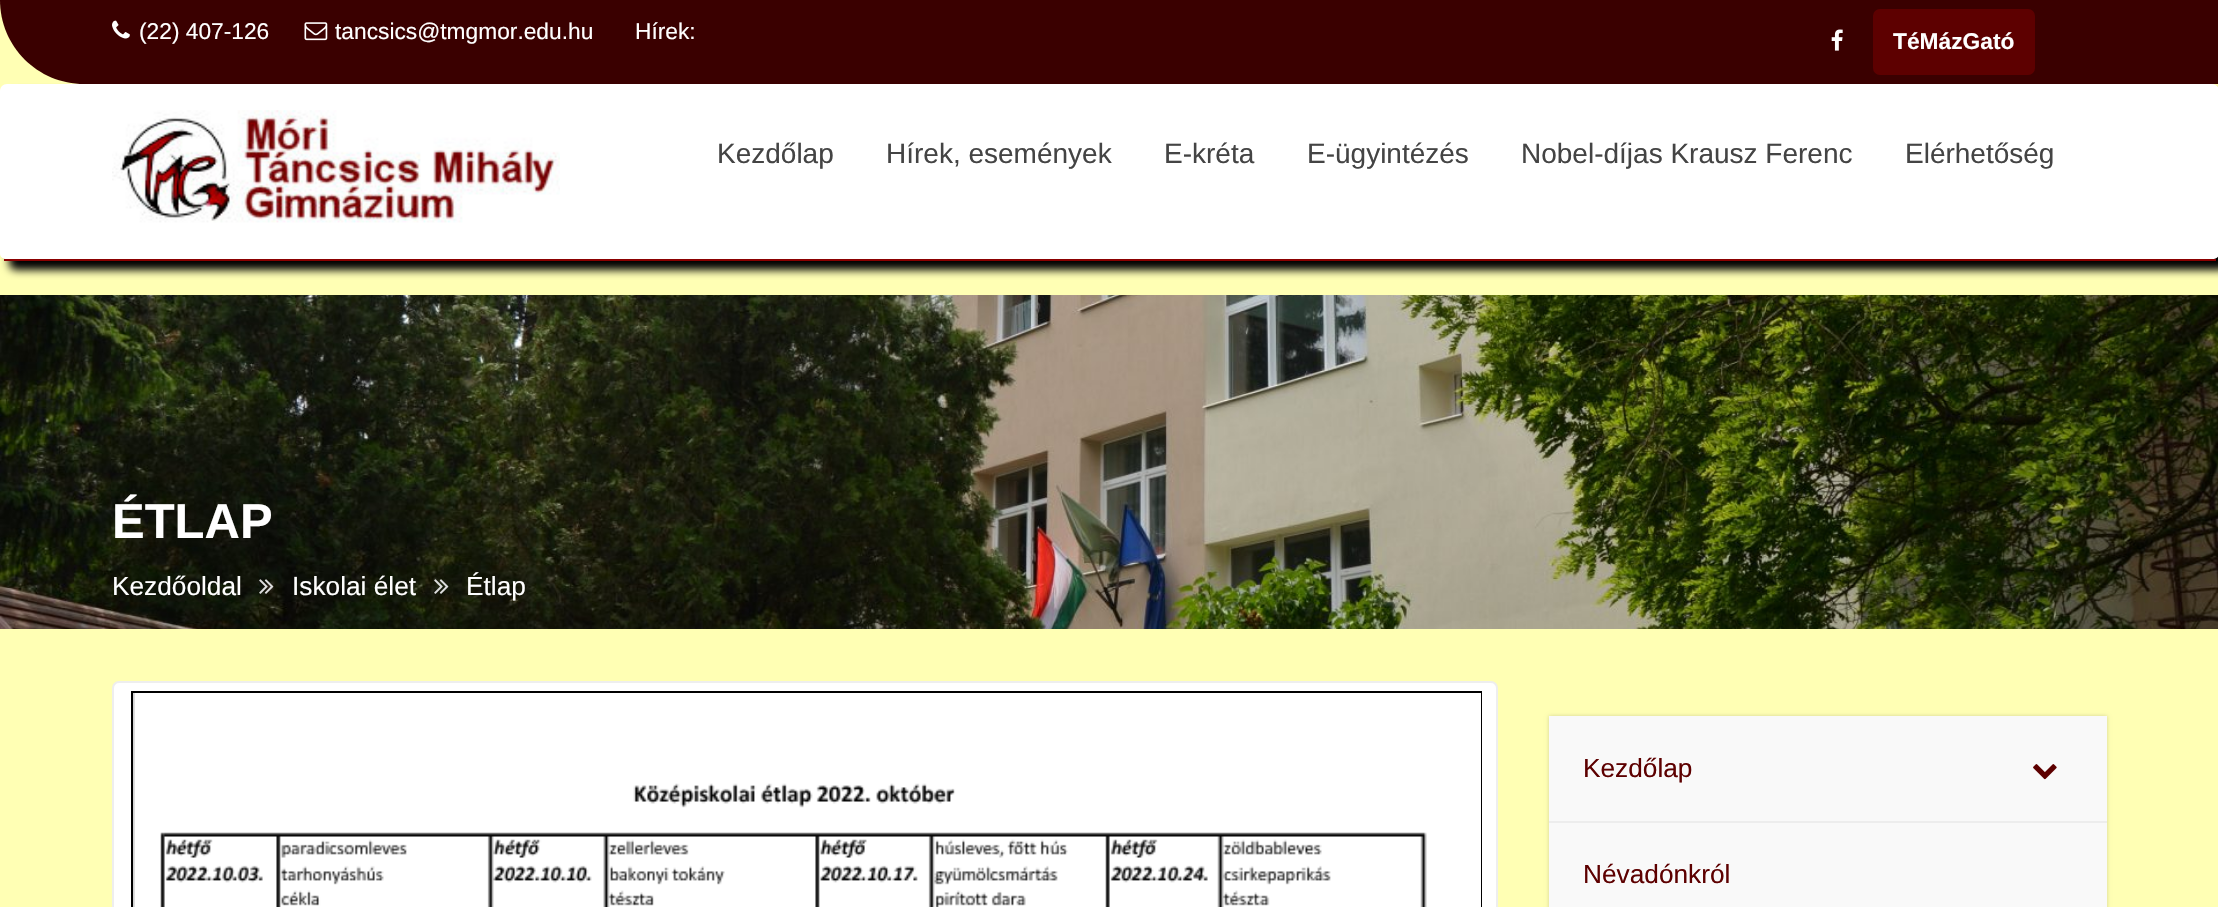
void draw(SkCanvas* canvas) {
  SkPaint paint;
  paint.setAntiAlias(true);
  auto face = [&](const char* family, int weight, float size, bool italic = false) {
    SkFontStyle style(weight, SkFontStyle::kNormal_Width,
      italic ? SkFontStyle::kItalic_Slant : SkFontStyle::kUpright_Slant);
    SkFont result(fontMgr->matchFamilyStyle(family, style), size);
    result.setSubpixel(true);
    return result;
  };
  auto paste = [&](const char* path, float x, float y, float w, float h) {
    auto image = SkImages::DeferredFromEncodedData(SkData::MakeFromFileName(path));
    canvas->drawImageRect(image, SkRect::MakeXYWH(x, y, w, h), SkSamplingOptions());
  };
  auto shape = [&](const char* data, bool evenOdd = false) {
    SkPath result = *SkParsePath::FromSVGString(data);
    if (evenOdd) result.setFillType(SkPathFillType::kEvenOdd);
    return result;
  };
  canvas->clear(0xffffffb4);
  paint.setColor(0xff3a0000);
  canvas->drawPath(shape("M0 0H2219V84H84C37.5 84 0 46.5 0 0Z"), paint);
  paste("img/1.png", 112, 20, 18, 19);
  paste("img/2.png", 304, 22, 24, 19);
  paste("img/3.png", 1831, 29, 12, 22);
  paint.setColor(0xff5d0000);
  canvas->drawRoundRect(SkRect::MakeXYWH(1875, 11, 158, 62), 5, 5, paint);
  paint.setStroke(true);
  paint.setStrokeWidth(4);
  canvas->drawRoundRect(SkRect::MakeXYWH(1875, 11, 158, 62), 5, 5, paint);
  paint.setStroke(false);
  paint.setColor(0xff000000);
  paint.setMaskFilter(SkMaskFilter::MakeBlur(kNormal_SkBlurStyle, 4.5f));
  canvas->drawRoundRect(SkRect::MakeXYWH(9, 93, 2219, 177), 7, 7, paint);
  paint.setMaskFilter(nullptr);
  paint.setColor(0xffffffff);
  canvas->drawPath(shape("M7 84H2212C2216 84 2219 87 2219 91V254C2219 257 2216 259 2212 259H7C3 259 0 257 0 254V91C0 87 3 84 7 84Z"), paint);
  paint.setColor(0xff8b0000);
  canvas->drawRect(SkRect::MakeXYWH(4, 259, 2212, 2), paint);
  paste("img/4.png", 112, 110, 448, 113);
  paste("img/5.png", 0, 295, 2218, 334);
  paste("img/6.png", 259, 579, 15, 15);
  paste("img/7.png", 434, 579, 15, 15);
  paint.setColor(0xffffffff);
  canvas->drawRoundRect(SkRect::MakeXYWH(113, 682, 1384, 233), 6, 6, paint);
  paint.setStroke(true);
  paint.setStrokeWidth(2);
  paint.setColor(0xffeeeeee);
  canvas->drawRoundRect(SkRect::MakeXYWH(113, 682, 1384, 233), 6, 6, paint);
  paint.setStroke(false);
  paint.setColor(0xffd3d3d3);
  canvas->drawRect(SkRect::MakeXYWH(133, 693, 2, 214), paint);
  paint.setStroke(true);
  paint.setColor(0xff000000);
  canvas->drawRect(SkRect::MakeXYWH(132, 692, 1349, 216), paint);
  paint.setStroke(false);
  paint.setColor(0xffffffff);
  canvas->drawRect(SkRect::MakeXYWH(1480, 693, 1, 214), paint);
  paste("img/8.png", 134, 693, 1293, 214);
  paint.setColor(0x2b000000);
  paint.setMaskFilter(SkMaskFilter::MakeBlur(kNormal_SkBlurStyle, 2));
  canvas->drawRect(SkRect::MakeXYWH(1549, 716, 558, 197), paint);
  paint.setMaskFilter(nullptr);
  paint.setColor(0xfff9f9f9);
  canvas->drawRect(SkRect::MakeXYWH(1549, 716, 558, 191), paint);
  paint.setColor(0xffededed);
  canvas->drawRect(SkRect::MakeXYWH(1549, 821, 558, 2), paint);
  paste("img/9.png", 2033, 764, 24, 16);
  auto f0 = face("Liberation Sans", 400, 22.75f);
  paint.setColor(0xffffffff);
  {
    const struct { const char* s; float x, y; } items[] = {
      {"(22) 407-126", 139, 39},
      {"tancsics@tmgmor.edu.hu", 335, 39},
      {"Hírek:", 635, 39},
    };
    for (auto [s, x, y] : items) {
      canvas->drawString(s, x, y, f0, paint);
    }
  }
  auto f1 = face("Liberation Sans", 700, 22.75f);
  canvas->drawString("TéMázGató", 1893, 49, f1, paint);
  auto f2 = face("Liberation Sans", 400, 28);
  paint.setColor(0xff444444);
  {
    const struct { const char* s; float x, y; } items[] = {
      {"Kezdőlap", 717, 163},
      {"Hírek, események", 886, 163},
      {"E-kréta", 1164, 163},
      {"E-ügyintézés", 1307, 163},
      {"Nobel-díjas Krausz Ferenc", 1521, 163},
      {"Elérhetőség", 1905, 163},
    };
    for (auto [s, x, y] : items) {
      canvas->drawString(s, x, y, f2, paint);
    }
  }
  auto f3 = face("Liberation Sans", 700, 49);
  paint.setColor(0xffffffff);
  canvas->drawString("ÉTLAP", 112, 538, f3, paint);
  auto f4 = face("Liberation Sans", 400, 26.25f);
  {
    const struct { const char* s; float x, y; } items[] = {
      {"Kezdőoldal", 112, 595},
      {"Iskolai élet", 292, 595},
      {"Étlap", 466, 595},
    };
    for (auto [s, x, y] : items) {
      canvas->drawString(s, x, y, f4, paint);
    }
  }
  paint.setColor(0xff5d0000);
  canvas->drawString("Kezdőlap", 1583, 777, f4, paint);
  canvas->drawString("Névadónkról", 1583, 883, f4, paint);
}
